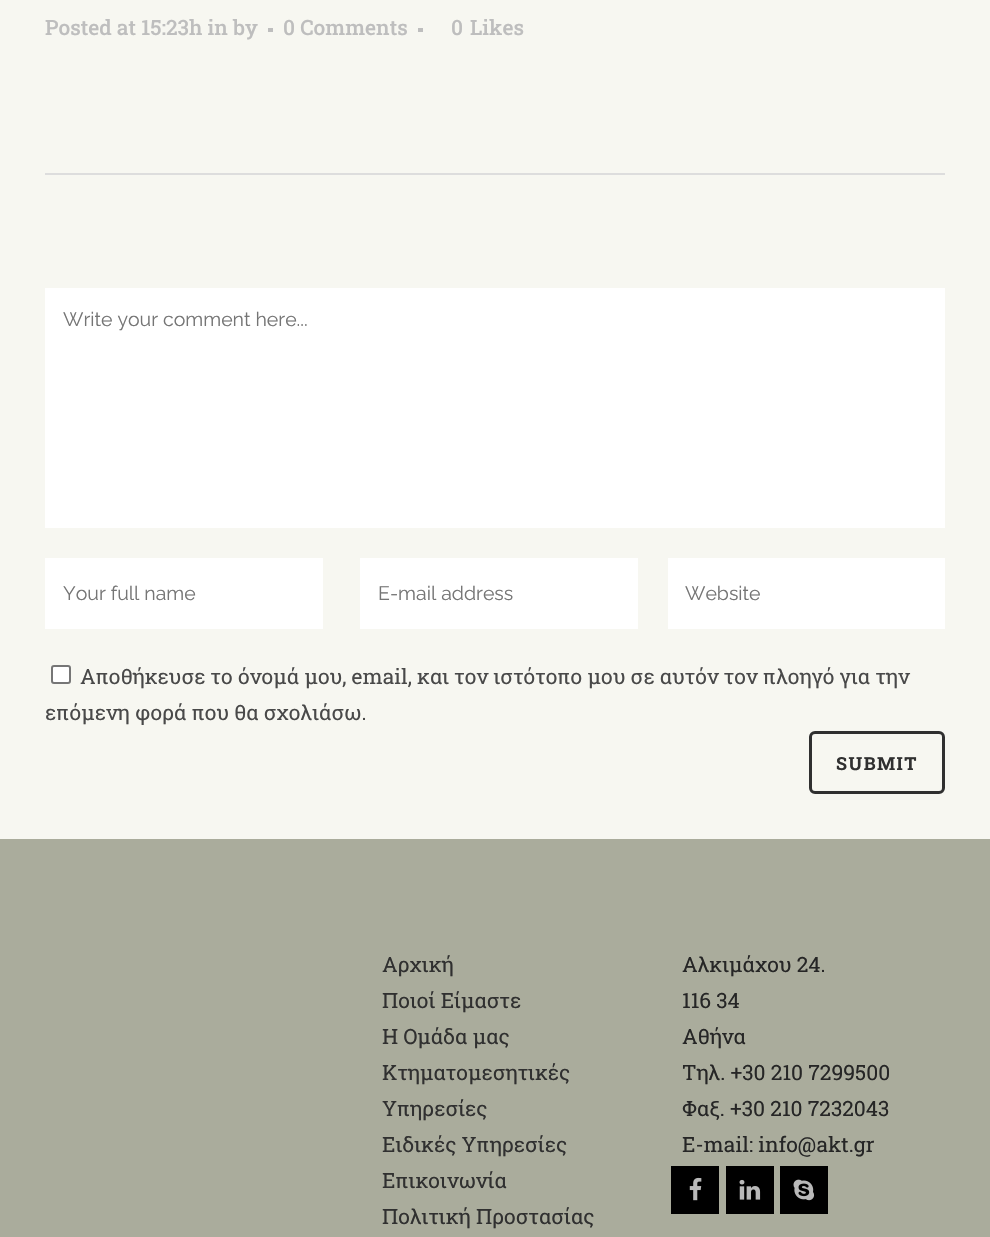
void draw(SkCanvas* canvas) {
  SkPaint paint;
  paint.setAntiAlias(true);
  auto face = [&](const char* family, int weight, float size, bool italic = false) {
    SkFontStyle style(weight, SkFontStyle::kNormal_Width,
      italic ? SkFontStyle::kItalic_Slant : SkFontStyle::kUpright_Slant);
    SkFont result(fontMgr->matchFamilyStyle(family, style), size);
    result.setSubpixel(true);
    return result;
  };
  auto writeSpaced = [&](const char* s, float x, float y, const SkFont& font, const SkPaint& ink, float letter, float word) {
    std::vector<SkGlyphID> glyphs(font.countText(s, strlen(s), SkTextEncoding::kUTF8));
    std::vector<float> xs(glyphs.size());
    font.textToGlyphs(s, strlen(s), SkTextEncoding::kUTF8, glyphs);
    font.getXPos(glyphs, xs, x);
    float extra = 0;
    for (size_t i = 0; i < glyphs.size(); i++) {
      xs[i] += extra;
      extra += letter + word * (glyphs[i] == font.unicharToGlyph(' '));
    }
    canvas->drawTextBlob(SkTextBlob::MakeFromPosHGlyphs(glyphs, xs, y, font), 0, 0, ink);
  };
  auto paste = [&](const char* path, float x, float y, float w, float h) {
    auto image = SkImages::DeferredFromEncodedData(SkData::MakeFromFileName(path));
    canvas->drawImageRect(image, SkRect::MakeXYWH(x, y, w, h), SkSamplingOptions());
  };
  canvas->clear(0xfff7f7f1);
  {
    const struct { float x, y, w, h; SkColor color; } items[] = {
      {268, 28, 5, 4, 0xffbebebe},
      {418, 28, 5, 4, 0xffbebebe},
      {45, 173, 900, 2, 0xffdddddd},
      {45, 288, 900, 240, 0xffffffff},
      {45, 558, 278, 71, 0xffffffff},
      {360, 558, 278, 71, 0xffffffff},
      {668, 558, 277, 71, 0xffffffff},
    };
    for (auto [x, y, w, h, color] : items) {
      paint.setColor(color);
      canvas->drawRect(SkRect::MakeXYWH(x, y, w, h), paint);
    }
  }
  canvas->drawRoundRect(SkRect::MakeXYWH(52, 666, 18, 17), 2, 2, paint);
  paint.setStroke(true);
  paint.setStrokeWidth(2);
  paint.setColor(0xff767676);
  canvas->drawRoundRect(SkRect::MakeXYWH(52, 666, 18, 17), 2, 2, paint);
  paint.setStrokeWidth(3);
  paint.setColor(0xff303030);
  canvas->drawRoundRect(SkRect::MakeXYWH(810.5f, 732.5f, 133, 60), 4.5f, 4.5f, paint);
  paint.setStroke(false);
  paint.setColor(0xffaaac9c);
  canvas->drawRect(SkRect::MakeXYWH(0, 839, 990, 398), paint);
  paint.setColor(0xff000000);
  canvas->drawRect(SkRect::MakeXYWH(671, 1166, 48, 48), paint);
  paste("img/1.png", 689, 1177, 13, 24);
  canvas->drawRect(SkRect::MakeXYWH(726, 1166, 48, 48), paint);
  paste("img/2.png", 739, 1179, 22, 21);
  canvas->drawRect(SkRect::MakeXYWH(780, 1166, 48, 48), paint);
  paste("img/3.png", 793, 1179, 22, 22);
  auto f0 = face("Roboto Slab", 500, 21);
  paint.setColor(0xffbebebe);
  {
    const struct { const char* s; float x, y; } items[] = {
      {"Posted at 15:23h in by", 45, 35},
      {"0 Comments", 283, 35},
      {"0", 451, 35},
      {"Likes", 470, 35},
    };
    for (auto [s, x, y] : items) {
      canvas->drawString(s, x, y, f0, paint);
    }
  }
  auto f1 = face("Raleway", 400, 19.5f);
  paint.setColor(0xff757575);
  {
    const struct { const char* s; float x, y; } items[] = {
      {"Write your comment here...", 63, 326},
      {"Your full name", 63, 600},
      {"E-mail address", 378, 600},
      {"Website", 685, 600},
    };
    for (auto [s, x, y] : items) {
      canvas->drawString(s, x, y, f1, paint);
    }
  }
  auto f2 = face("Roboto Slab", 400, 21);
  paint.setColor(0xff494949);
  canvas->drawString("Αποθήκευσε το όνομά μου, email, και τον ιστότοπο μου σε αυτόν τον πλοηγό για την", 80, 684, f2, paint);
  canvas->drawString("επόμενη φορά που θα σχολιάσω.", 45, 720, f2, paint);
  auto f3 = face("Roboto Slab", 700, 18);
  paint.setColor(0xff303030);
  writeSpaced("SUBMIT", 836, 770, f3, paint, 1.5f, 0);
  {
    const struct { const char* s; float x, y; } items[] = {
      {"Αρχική", 382, 972},
      {"Ποιοί Είμαστε", 382, 1008},
      {"Η Ομάδα μας", 382, 1044},
      {"Κτηματομεσητικές", 382, 1080},
      {"Υπηρεσίες", 382, 1116},
      {"Ειδικές Υπηρεσίες", 382, 1152},
      {"Επικοινωνία", 382, 1188},
      {"Πολιτική Προστασίας", 382, 1224},
    };
    for (auto [s, x, y] : items) {
      canvas->drawString(s, x, y, f2, paint);
    }
  }
  paint.setColor(0xff262626);
  {
    const struct { const char* s; float x, y; } items[] = {
      {"Αλκιμάχου 24.", 682, 972},
      {"116 34", 682, 1008},
      {"Αθήνα", 682, 1044},
      {"Τηλ. +30 210 7299500", 682, 1080},
      {"Φαξ. +30 210 7232043", 682, 1116},
      {"Ε-mail: info@akt.gr", 682, 1152},
    };
    for (auto [s, x, y] : items) {
      canvas->drawString(s, x, y, f2, paint);
    }
  }
}
